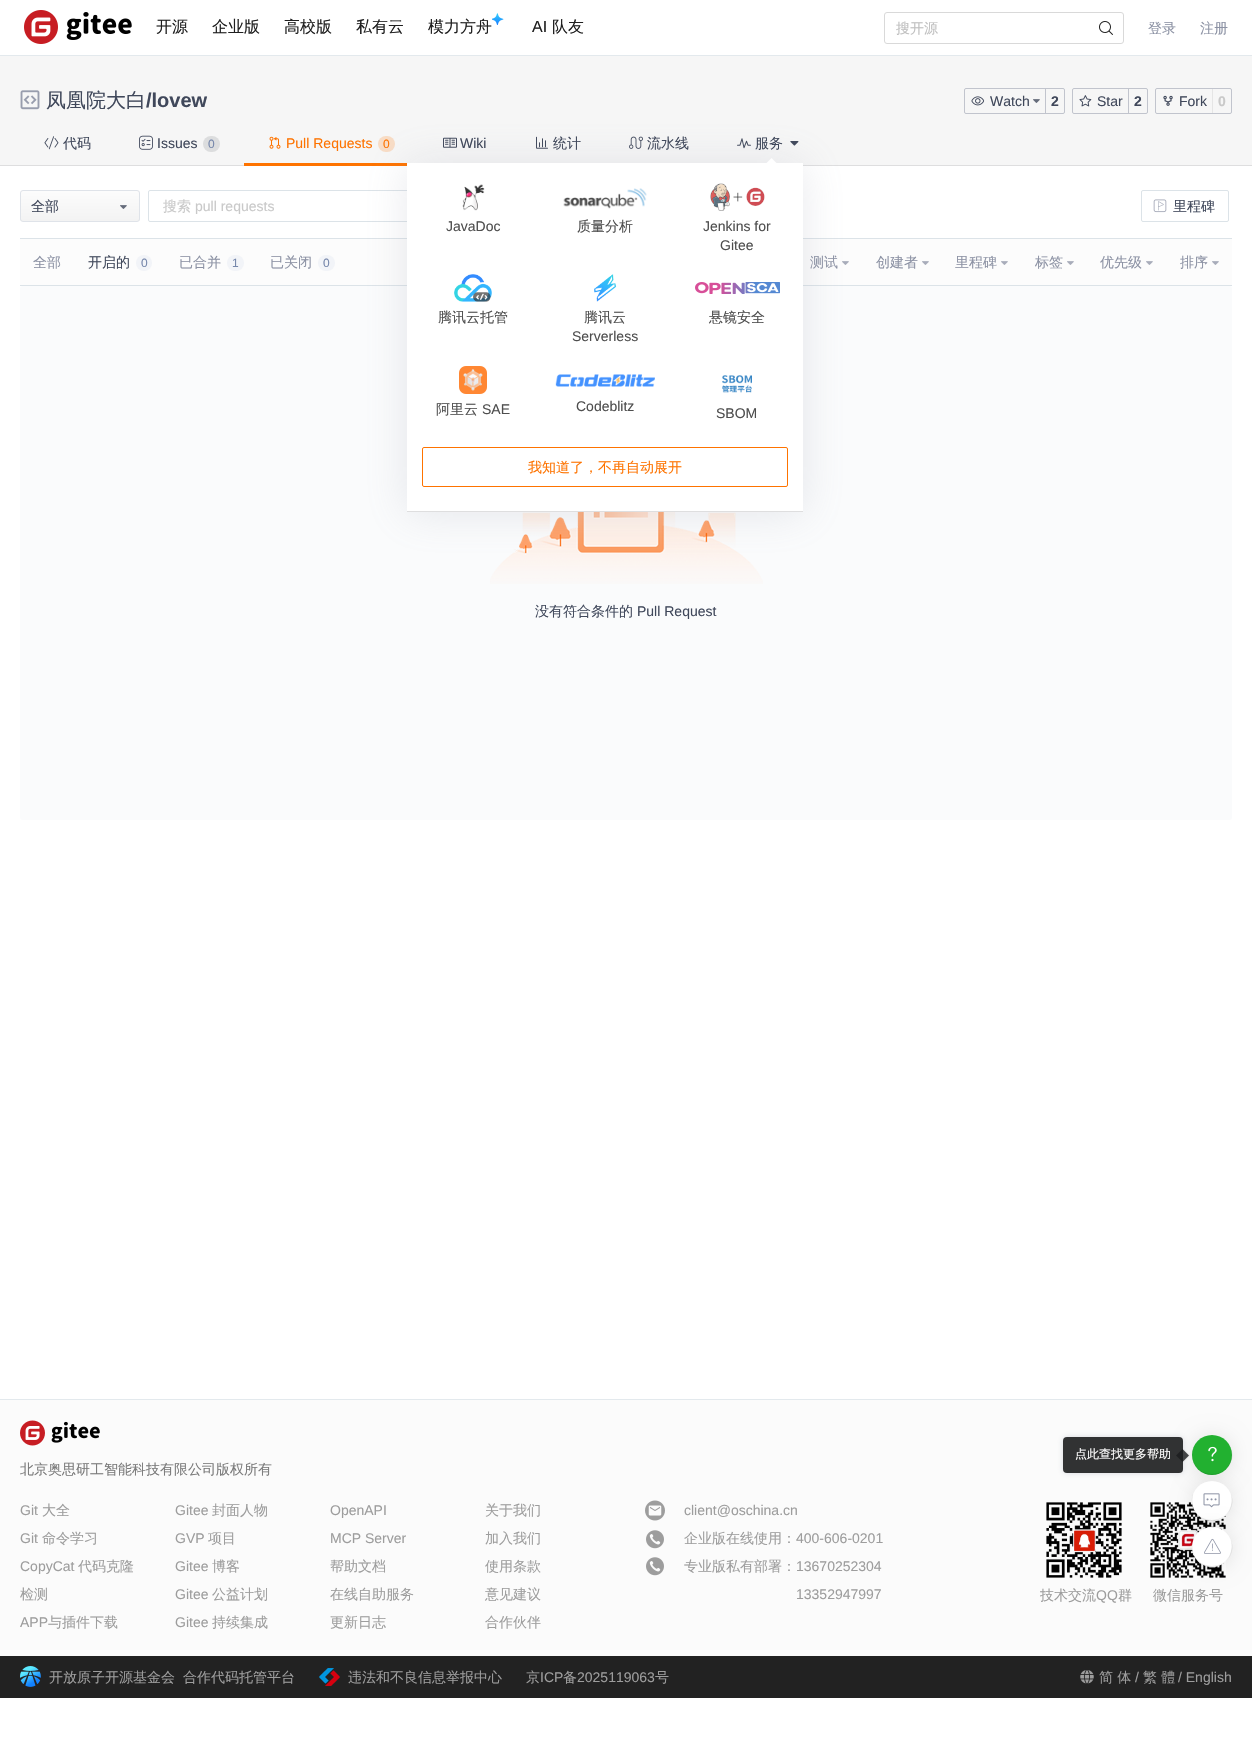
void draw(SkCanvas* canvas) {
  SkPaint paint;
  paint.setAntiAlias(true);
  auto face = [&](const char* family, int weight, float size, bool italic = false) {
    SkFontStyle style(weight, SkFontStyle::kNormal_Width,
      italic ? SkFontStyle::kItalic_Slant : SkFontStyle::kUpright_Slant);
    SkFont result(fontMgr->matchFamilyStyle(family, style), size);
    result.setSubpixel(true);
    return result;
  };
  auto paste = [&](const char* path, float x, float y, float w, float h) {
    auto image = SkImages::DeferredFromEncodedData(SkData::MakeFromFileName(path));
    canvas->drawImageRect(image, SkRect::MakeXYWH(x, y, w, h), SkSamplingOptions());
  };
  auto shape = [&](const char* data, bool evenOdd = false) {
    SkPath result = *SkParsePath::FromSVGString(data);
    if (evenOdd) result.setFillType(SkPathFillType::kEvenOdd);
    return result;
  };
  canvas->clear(0xffffffff);
  paint.setColor(0xffe3e9ed);
  canvas->drawRect(SkRect::MakeXYWH(0, 55, 1252, 1), paint);
  paste("img/1.png", 24, 10, 108, 34);
  paste("img/2.png", 492, 13, 12, 12);
  paint.setStroke(true);
  paint.setStrokeWidth(1);
  paint.setColor(0xffd9d9d9);
  canvas->drawRoundRect(SkRect::MakeXYWH(884.5f, 12.5f, 239, 31), 2.5f, 2.5f, paint);
  paste("img/3.png", 1099, 21, 14, 14);
  paint.setStroke(false);
  paint.setColor(0xfff6f6f6);
  canvas->drawRect(SkRect::MakeXYWH(0, 56, 1252, 109), paint);
  paint.setColor(0xffdededf);
  canvas->drawRect(SkRect::MakeXYWH(0, 165, 1252, 1), paint);
  paste("img/4.png", 20, 90, 20, 20);
  paint.setStroke(true);
  paint.setColor(0xffc1c4cd);
  canvas->drawRoundRect(SkRect::MakeXYWH(964.5f, 88.5f, 100, 25), 1.5f, 1.5f, paint);
  paste("img/5.png", 971, 96, 14, 10);
  paste("img/6.png", 1033, 99, 7, 4);
  paint.setStroke(false);
  canvas->drawRect(SkRect::MakeXYWH(1045, 89, 1, 24), paint);
  paint.setStroke(true);
  canvas->drawRoundRect(SkRect::MakeXYWH(1072.5f, 88.5f, 75, 25), 1.5f, 1.5f, paint);
  paste("img/7.png", 1079, 95, 13, 12);
  paint.setStroke(false);
  canvas->drawRect(SkRect::MakeXYWH(1128, 89, 1, 24), paint);
  paint.setStroke(true);
  canvas->drawRoundRect(SkRect::MakeXYWH(1155.5f, 88.5f, 76, 25), 1.5f, 1.5f, paint);
  paste("img/8.png", 1163, 95, 10, 11);
  paint.setStroke(false);
  paint.setColor(0xffe5e5e5);
  canvas->drawRect(SkRect::MakeXYWH(1212, 89, 1, 24), paint);
  paste("img/9.png", 44, 136, 15, 14);
  paste("img/10.png", 737, 138, 14, 11);
  paste("img/11.png", 790, 141, 9, 5);
  paint.setColor(0xfffe7300);
  canvas->drawRect(SkRect::MakeXYWH(244, 163, 163, 3), paint);
  paint.setColor(0xfff8dcc5);
  canvas->drawRoundRect(SkRect::MakeXYWH(378, 136, 17, 16), 8, 8, paint);
  paste("img/23.png", 443, 137, 14, 11);
  paste("img/24.png", 536, 136, 12, 13);
  paste("img/25.png", 629, 136, 14, 13);
  paint.setStroke(true);
  paint.setColor(0xffdce3e8);
  canvas->drawRoundRect(SkRect::MakeXYWH(148.5f, 190.5f, 499, 31), 1.5f, 1.5f, paint);
  paint.setStroke(false);
  {
    const struct { float x, y, w, h; SkColor color; } items[] = {
      {20, 239, 1212, 46, 0xfffcfcfc},
      {20, 285, 1212, 1, 0xffdce3e8},
      {20, 238, 1212, 1, 0xffdce3e8},
    };
    for (auto [x, y, w, h, color] : items) {
      paint.setColor(color);
      canvas->drawRect(SkRect::MakeXYWH(x, y, w, h), paint);
    }
  }
  paste("img/28.png", 842, 261, 7, 4);
  paint.setColor(0xfffafbfc);
  canvas->drawRoundRect(SkRect::MakeXYWH(20, 286, 1212, 534), 3, 3, paint);
  paste("img/29.png", 490, 512, 273, 72);
  paint.setColor(0x338c92a3);
  paint.setMaskFilter(SkMaskFilter::MakeBlur(kNormal_SkBlurStyle, 20));
  canvas->drawRect(SkRect::MakeXYWH(407, 164, 396, 349), paint);
  paint.setMaskFilter(nullptr);
  paint.setColor(0xffffffff);
  canvas->drawRect(SkRect::MakeXYWH(407, 163, 396, 348), paint);
  paint.setColor(0xffdededf);
  canvas->drawRect(SkRect::MakeXYWH(407, 511, 396, 1), paint);
  paint.setColor(0xffffffff);
  canvas->drawPath(shape("M771.5 158L776.5 163L771.5 168L766.5 163Z"), paint);
  paste("img/12.png", 462, 184, 23, 27);
  paste("img/13.png", 563, 188, 84, 21);
  paste("img/14.png", 710, 183, 55, 28);
  paste("img/15.png", 454, 274, 38, 28);
  paste("img/16.png", 594, 274, 23, 28);
  paste("img/17.png", 695, 282, 85, 12);
  paste("img/18.png", 459, 366, 28, 28);
  paste("img/19.png", 555, 374, 100, 13);
  paste("img/20.png", 722, 375, 30, 18);
  paint.setStroke(true);
  paint.setColor(0xfffe7300);
  canvas->drawRoundRect(SkRect::MakeXYWH(422.5f, 447.5f, 365, 39), 1.5f, 1.5f, paint);
  paste("img/21.png", 139, 135, 14, 15);
  paint.setStroke(false);
  paint.setColor(0xffdcddde);
  canvas->drawRoundRect(SkRect::MakeXYWH(203, 136, 17, 16), 8, 8, paint);
  paste("img/22.png", 269, 136, 12, 13);
  canvas->save();
  canvas->clipPath(shape("M23 190H137C138.5 190 140 191.5 140 193V219C140 220.5 138.5 222 137 222H23C21.5 222 20 220.5 20 219V193C20 191.5 21.5 190 23 190Z"), true);
  {
    const SkColor colors[] = {0xfffcfcfc, 0xfff3f3f3};
    const float stops[] = {0, 1};
    const SkPoint ends[] = {{80, 191}, {80, 221}};
    paint.setShader(SkGradientShader::MakeLinear(ends, colors, stops, 2, SkTileMode::kClamp));
    paint.setAlpha(255);
  }
  canvas->drawRect(SkRect::MakeXYWH(20, 191, 120, 30), paint);
  canvas->restore();
  paint.setStroke(true);
  paint.setShader(nullptr);
  paint.setColor(0xffdfe3e9);
  canvas->drawRoundRect(SkRect::MakeXYWH(20.5f, 190.5f, 119, 31), 2.5f, 2.5f, paint);
  paste("img/26.png", 120, 205, 7, 4);
  paint.setColor(0xffdce3e8);
  canvas->drawRoundRect(SkRect::MakeXYWH(1141.5f, 190.5f, 87, 31), 1.5f, 1.5f, paint);
  paste("img/27.png", 1153, 199, 14, 14);
  paint.setStroke(false);
  paint.setColor(0xfff2f4f8);
  canvas->drawCircle(144, 263, 8, paint);
  canvas->drawRoundRect(SkRect::MakeXYWH(227, 255, 17, 16), 8, 8, paint);
  canvas->drawRoundRect(SkRect::MakeXYWH(318, 255, 17, 16), 8, 8, paint);
  paste("img/28.png", 922, 261, 7, 4);
  paste("img/28.png", 1001, 261, 7, 4);
  paste("img/28.png", 1067, 261, 7, 4);
  paste("img/28.png", 1146, 261, 7, 4);
  paste("img/28.png", 1212, 261, 7, 4);
  paint.setColor(0xfffbfbfb);
  canvas->drawRect(SkRect::MakeXYWH(0, 1400, 1252, 256), paint);
  paste("img/37.png", 1150, 1502, 76, 76);
  paint.setColor(0x1a000000);
  paint.setMaskFilter(SkMaskFilter::MakeBlur(kNormal_SkBlurStyle, 10));
  canvas->drawRoundRect(SkRect::MakeXYWH(1192, 1436, 40, 40), 20, 20, paint);
  paint.setMaskFilter(nullptr);
  paint.setColor(0xff22b130);
  canvas->drawCircle(1212, 1455, 20, paint);
  paint.setColor(0x1a000000);
  canvas->drawPath(shape("M1193 1448C1191 1452 1192 1458 1194 1463C1204 1487 1240 1471 1231 1448C1234 1459 1228 1474 1212 1474C1196 1474 1190 1459 1193 1448Z"), paint);
  canvas->save();
  canvas->clipPath(shape("M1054 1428H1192V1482H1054ZM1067 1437H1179C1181 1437 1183 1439 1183 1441V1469C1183 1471 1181 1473 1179 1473H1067C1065 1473 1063 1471 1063 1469V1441C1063 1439 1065 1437 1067 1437Z", true), true);
  paint.setColor(0x738c92a3);
  paint.setMaskFilter(SkMaskFilter::MakeBlur(kNormal_SkBlurStyle, 3));
  canvas->drawRoundRect(SkRect::MakeXYWH(1064, 1438, 118, 34), 3, 3, paint);
  paint.setMaskFilter(nullptr);
  canvas->restore();
  paint.setColor(0xe61b1c1d);
  canvas->drawRoundRect(SkRect::MakeXYWH(1063, 1437, 120, 36), 4, 4, paint);
  paint.setColor(0x29b3b3b3);
  canvas->drawPath(shape("M1184 1449L1183 1450L1189 1455.5L1183 1461L1184 1462L1190 1455.5Z"), paint);
  paint.setColor(0xcf1b1c1d);
  canvas->drawPath(shape("M1182.5 1449L1189 1455.5L1182.5 1462L1176 1455.5Z"), paint);
  paste("img/30.png", 1208, 1446, 9, 16);
  paint.setColor(0x1a000000);
  paint.setMaskFilter(SkMaskFilter::MakeBlur(kNormal_SkBlurStyle, 10));
  canvas->drawRoundRect(SkRect::MakeXYWH(1192, 1482, 40, 40), 20, 20, paint);
  paint.setMaskFilter(nullptr);
  paint.setColor(0xffffffff);
  canvas->drawCircle(1212, 1501, 20, paint);
  paint.setColor(0x1a000000);
  canvas->drawPath(shape("M1193 1494C1191 1498 1192 1504 1194 1509C1204 1533 1240 1517 1231 1494C1234 1505 1228 1520 1212 1520C1196 1520 1190 1505 1193 1494Z"), paint);
  paste("img/31.png", 1203, 1493, 17, 15);
  paint.setMaskFilter(SkMaskFilter::MakeBlur(kNormal_SkBlurStyle, 10));
  canvas->drawRoundRect(SkRect::MakeXYWH(1192, 1528, 40, 40), 20, 20, paint);
  paint.setMaskFilter(nullptr);
  paint.setColor(0xffffffff);
  canvas->drawCircle(1212, 1547, 20, paint);
  paint.setColor(0x1a000000);
  canvas->drawPath(shape("M1193 1540C1191 1544 1192 1550 1194 1555C1204 1579 1240 1563 1231 1540C1234 1551 1228 1566 1212 1566C1196 1566 1190 1551 1193 1540Z"), paint);
  paste("img/32.png", 1204, 1538, 17, 16);
  paint.setColor(0xffe3e9ed);
  canvas->drawRect(SkRect::MakeXYWH(0, 1399, 1252, 1), paint);
  paste("img/33.png", 20, 1420, 80, 26);
  paste("img/34.png", 645, 1500, 20, 21);
  paste("img/35.png", 646, 1530, 18, 19);
  paste("img/35.png", 646, 1557, 18, 19);
  paste("img/36.png", 1046, 1502, 76, 76);
  paint.setColor(0xff222222);
  canvas->drawRect(SkRect::MakeXYWH(0, 1656, 1252, 42), paint);
  paste("img/38.png", 20, 1666, 21, 21);
  paste("img/39.png", 319, 1668, 21, 18);
  paste("img/40.png", 1080, 1670, 14, 14);
  auto f0 = face("WenQuanYi Zen Hei", 500, 16);
  paint.setColor(0xff1f1f1f);
  {
    const struct { const char* s; float x, y; } items[] = {
      {"开源", 156, 32},
      {"企业版", 212, 32},
      {"高校版", 284, 32},
      {"私有云", 356, 32},
      {"模力方舟", 428, 32},
    };
    for (auto [s, x, y] : items) {
      canvas->drawString(s, x, y, f0, paint);
    }
  }
  auto f1 = face("Liberation Sans", 400, 16);
  canvas->drawString("AI", 532, 32, f1, paint);
  canvas->drawString("队友", 552, 32, f0, paint);
  auto f2 = face("WenQuanYi Zen Hei", 500, 14);
  paint.setColor(0xffbfbfbf);
  canvas->drawString("搜开源", 896, 33, f2, paint);
  paint.setColor(0xff8c92a4);
  canvas->drawString("登录", 1148, 33, f2, paint);
  canvas->drawString("注册", 1200, 33, f2, paint);
  auto f3 = face("WenQuanYi Zen Hei", 500, 20);
  paint.setColor(0xff40485b);
  canvas->drawString("凤凰院大白", 46, 107, f3, paint);
  auto f4 = face("Liberation Sans", 700, 20);
  canvas->drawString("/lovew", 146, 107, f4, paint);
  auto f5 = face("Liberation Sans", 400, 14);
  canvas->drawString("Watch", 990, 106, f5, paint);
  auto f6 = face("Liberation Sans", 700, 14);
  canvas->drawString("2", 1051, 106, f6, paint);
  canvas->drawString("Star", 1097, 106, f5, paint);
  canvas->drawString("2", 1134, 106, f6, paint);
  canvas->drawString("Fork", 1179, 106, f5, paint);
  paint.setColor(0xffc9c9c9);
  canvas->drawString("0", 1218, 106, f6, paint);
  paint.setColor(0xff40485b);
  canvas->drawString("代码", 63, 148, f2, paint);
  canvas->drawString("服务", 755, 148, f2, paint);
  paint.setColor(0xff4e4e4e);
  canvas->drawString("JavaDoc", 446, 231, f5, paint);
  canvas->drawString("质量分析", 577, 231, f2, paint);
  canvas->drawString("Jenkins for", 703, 231, f5, paint);
  canvas->drawString("Gitee", 720, 250, f5, paint);
  canvas->drawString("腾讯云托管", 438, 322, f2, paint);
  canvas->drawString("腾讯云", 584, 322, f2, paint);
  canvas->drawString("Serverless", 572, 341, f5, paint);
  canvas->drawString("悬镜安全", 709, 322, f2, paint);
  canvas->drawString("阿里云", 436, 414, f2, paint);
  {
    const struct { const char* s; float x, y; } items[] = {
      {"SAE", 482, 414},
      {"Codeblitz", 576, 411},
      {"SBOM", 716, 418},
    };
    for (auto [s, x, y] : items) {
      canvas->drawString(s, x, y, f5, paint);
    }
  }
  paint.setColor(0xfffe7300);
  canvas->drawString("我知道了，不再自动展开", 528, 472, f2, paint);
  paint.setColor(0xff40485b);
  canvas->drawString("Issues", 157, 148, f5, paint);
  auto f7 = face("Liberation Sans", 400, 12);
  paint.setColor(0xff7687ab);
  canvas->drawString("0", 208, 148, f7, paint);
  paint.setColor(0xfffe7300);
  canvas->drawString("Pull Requests", 286, 148, f5, paint);
  canvas->drawString("0", 383, 148, f7, paint);
  paint.setColor(0xff40485b);
  canvas->drawString("Wiki", 460, 148, f5, paint);
  {
    const struct { const char* s; float x, y; } items[] = {
      {"统计", 553, 148},
      {"流水线", 647, 148},
      {"全部", 31, 211},
    };
    for (auto [s, x, y] : items) {
      canvas->drawString(s, x, y, f2, paint);
    }
  }
  paint.setColor(0xffc9c9c9);
  canvas->drawString("搜索", 163, 211, f2, paint);
  canvas->drawString("pull requests", 195, 211, f5, paint);
  paint.setColor(0xff40485b);
  canvas->drawString("里程碑", 1173, 211, f2, paint);
  paint.setColor(0xff8c92a4);
  canvas->drawString("全部", 33, 267, f2, paint);
  paint.setColor(0xff40485b);
  canvas->drawString("开启的", 88, 267, f2, paint);
  paint.setColor(0xff7687ab);
  canvas->drawString("0", 141, 267, f7, paint);
  paint.setColor(0xff8c92a4);
  canvas->drawString("已合并", 179, 267, f2, paint);
  paint.setColor(0xff7687ab);
  canvas->drawString("1", 232, 267, f7, paint);
  paint.setColor(0xff8c92a4);
  canvas->drawString("已关闭", 270, 267, f2, paint);
  paint.setColor(0xff7687ab);
  canvas->drawString("0", 323, 267, f7, paint);
  paint.setColor(0xff8c92a4);
  {
    const struct { const char* s; float x, y; } items[] = {
      {"测试", 810, 267},
      {"创建者", 876, 267},
      {"里程碑", 955, 267},
      {"标签", 1035, 267},
      {"优先级", 1100, 267},
      {"排序", 1180, 267},
    };
    for (auto [s, x, y] : items) {
      canvas->drawString(s, x, y, f2, paint);
    }
  }
  paint.setColor(0xff40485b);
  canvas->drawString("没有符合条件的", 535, 616, f2, paint);
  canvas->drawString("Pull Request", 637, 616, f5, paint);
  auto f8 = face("WenQuanYi Zen Hei", 500, 12);
  paint.setColor(0xffffffff);
  canvas->drawString("点此查找更多帮助", 1075, 1458, f8, paint);
  paint.setColor(0xff7a7a7a);
  canvas->drawString("北京奥思研工智能科技有限公司版权所有", 20, 1474, f2, paint);
  paint.setColor(0xff9d9d9d);
  canvas->drawString("Git", 20, 1515, f5, paint);
  canvas->drawString("大全", 42, 1515, f2, paint);
  canvas->drawString("Git", 20, 1543, f5, paint);
  canvas->drawString("命令学习", 42, 1543, f2, paint);
  canvas->drawString("CopyCat", 20, 1571, f5, paint);
  canvas->drawString("代码克隆", 78, 1571, f2, paint);
  canvas->drawString("检测", 20, 1599, f2, paint);
  canvas->drawString("APP", 20, 1627, f5, paint);
  canvas->drawString("与插件下载", 48, 1627, f2, paint);
  canvas->drawString("Gitee", 175, 1515, f5, paint);
  canvas->drawString("封面人物", 212, 1515, f2, paint);
  canvas->drawString("GVP", 175, 1543, f5, paint);
  canvas->drawString("项目", 208, 1543, f2, paint);
  canvas->drawString("Gitee", 175, 1571, f5, paint);
  canvas->drawString("博客", 212, 1571, f2, paint);
  canvas->drawString("Gitee", 175, 1599, f5, paint);
  canvas->drawString("公益计划", 212, 1599, f2, paint);
  canvas->drawString("Gitee", 175, 1627, f5, paint);
  canvas->drawString("持续集成", 212, 1627, f2, paint);
  canvas->drawString("OpenAPI", 330, 1515, f5, paint);
  canvas->drawString("MCP Server", 330, 1543, f5, paint);
  {
    const struct { const char* s; float x, y; } items[] = {
      {"帮助文档", 330, 1571},
      {"在线自助服务", 330, 1599},
      {"更新日志", 330, 1627},
      {"关于我们", 485, 1515},
      {"加入我们", 485, 1543},
      {"使用条款", 485, 1571},
      {"意见建议", 485, 1599},
      {"合作伙伴", 485, 1627},
    };
    for (auto [s, x, y] : items) {
      canvas->drawString(s, x, y, f2, paint);
    }
  }
  canvas->drawString("client@oschina.cn", 684, 1515, f5, paint);
  canvas->drawString("企业版在线使用：", 684, 1543, f2, paint);
  canvas->drawString("400-606-0201", 796, 1543, f5, paint);
  canvas->drawString("专业版私有部署：", 684, 1571, f2, paint);
  canvas->drawString("13670252304", 796, 1571, f5, paint);
  canvas->drawString("13352947997", 796, 1599, f5, paint);
  canvas->drawString("技术交流", 1040, 1600, f2, paint);
  canvas->drawString("QQ", 1096, 1600, f5, paint);
  {
    const struct { const char* s; float x, y; } items[] = {
      {"群", 1118, 1600},
      {"微信服务号", 1153, 1600},
      {"开放原子开源基金会", 49, 1682},
      {"合作代码托管平台", 183, 1682},
      {"违法和不良信息举报中心", 348, 1682},
      {"京", 526, 1682},
    };
    for (auto [s, x, y] : items) {
      canvas->drawString(s, x, y, f2, paint);
    }
  }
  canvas->drawString("ICP", 540, 1682, f5, paint);
  canvas->drawString("备", 563, 1682, f2, paint);
  canvas->drawString("2025119063", 577, 1682, f5, paint);
  canvas->drawString("号", 655, 1682, f2, paint);
  canvas->drawString("简 体", 1099, 1682, f2, paint);
  canvas->drawString("/", 1135, 1682, f5, paint);
  canvas->drawString("繁 體", 1143, 1682, f2, paint);
  canvas->drawString("/ English", 1178, 1682, f5, paint);
}
